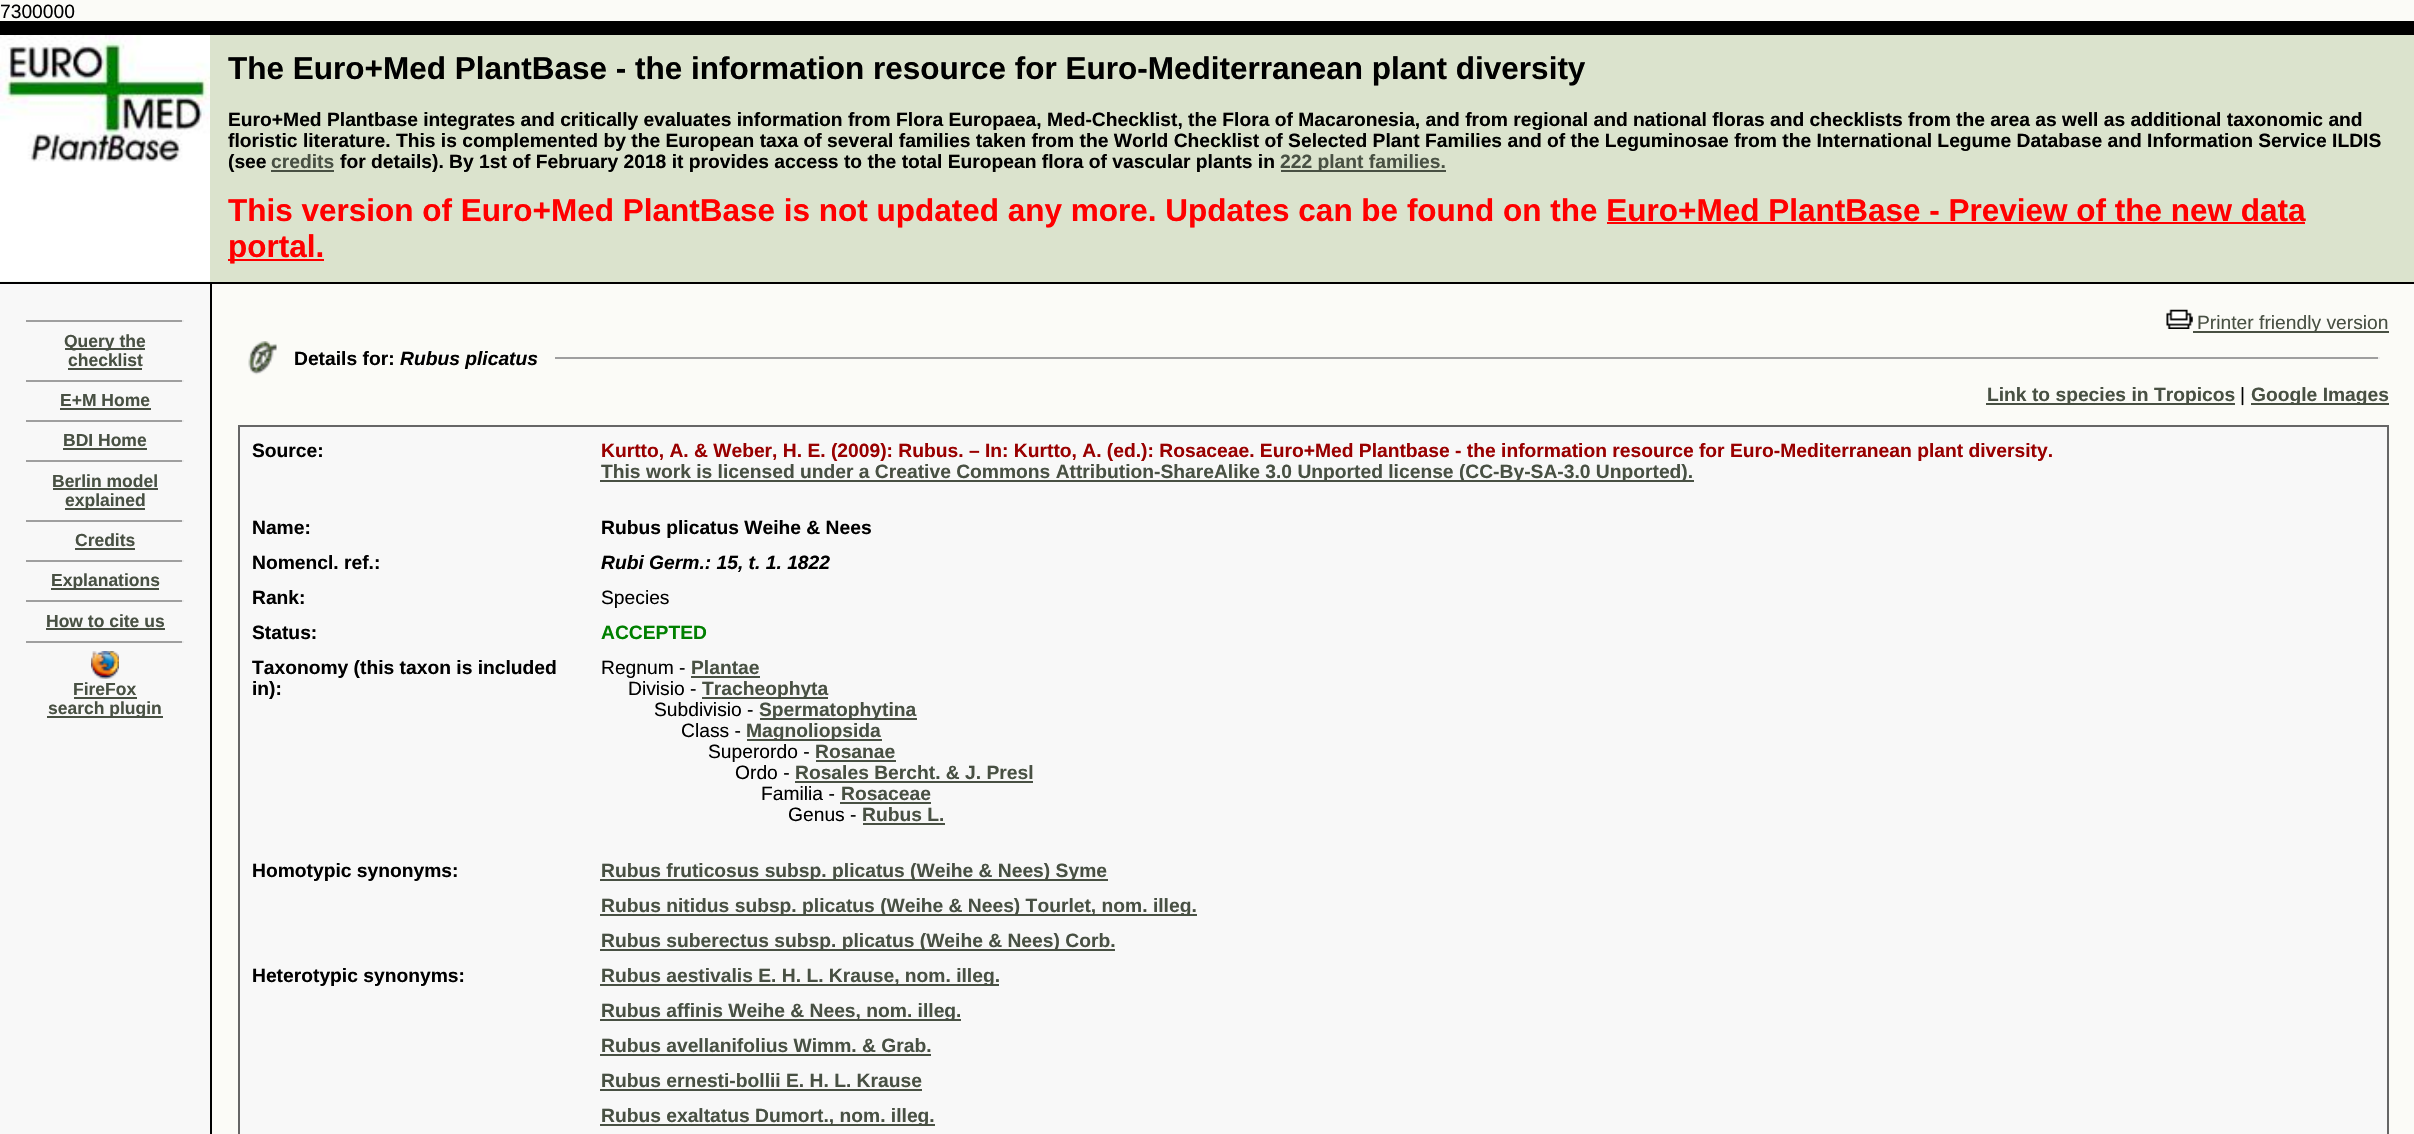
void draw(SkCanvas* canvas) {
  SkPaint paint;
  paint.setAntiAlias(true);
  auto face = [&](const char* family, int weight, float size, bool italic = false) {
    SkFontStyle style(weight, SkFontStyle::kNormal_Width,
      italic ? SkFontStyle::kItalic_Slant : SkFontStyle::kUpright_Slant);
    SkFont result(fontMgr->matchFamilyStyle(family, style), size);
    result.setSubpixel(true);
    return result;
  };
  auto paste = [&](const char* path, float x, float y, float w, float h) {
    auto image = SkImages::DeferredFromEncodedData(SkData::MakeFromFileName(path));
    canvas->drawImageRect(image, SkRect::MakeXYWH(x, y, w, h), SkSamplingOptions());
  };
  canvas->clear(0xfffbfbf7);
  paint.setColor(0xff000000);
  canvas->drawRect(SkRect::MakeXYWH(0, 21, 2414, 14), paint);
  paint.setColor(0xffdbe3cd);
  canvas->drawRect(SkRect::MakeXYWH(0, 35, 2414, 247), paint);
  paste("img/1.png", 0, 35, 210, 247);
  {
    const struct { float x, y, w, h; SkColor color; } items[] = {
      {271, 170, 63, 2, 0xff485043},
      {1281, 170, 165, 2, 0xff485043},
      {1607, 222, 698, 2, 0xffff0000},
      {228, 259, 96, 2, 0xffff0000},
      {0, 282, 2414, 2, 0xff000000},
      {0, 284, 210, 850, 0xfff8f8f8},
      {26, 320, 158, 2, 0xff9f9f9f},
      {182, 320, 2, 2, 0xffeeeeee},
      {65, 348, 80, 2, 0xff485043},
      {68, 368, 74, 2, 0xff485043},
      {26, 380, 158, 2, 0xff9f9f9f},
      {182, 380, 2, 2, 0xffeeeeee},
      {60, 408, 91, 2, 0xff485043},
      {26, 420, 158, 2, 0xff9f9f9f},
      {182, 420, 2, 2, 0xffeeeeee},
      {63, 448, 84, 2, 0xff485043},
      {26, 460, 158, 2, 0xff9f9f9f},
      {182, 460, 2, 2, 0xffeeeeee},
      {53, 488, 105, 2, 0xff485043},
      {65, 508, 80, 2, 0xff485043},
      {26, 520, 158, 2, 0xff9f9f9f},
      {182, 520, 2, 2, 0xffeeeeee},
      {75, 548, 60, 2, 0xff485043},
      {26, 560, 158, 2, 0xff9f9f9f},
      {182, 560, 2, 2, 0xffeeeeee},
      {51, 588, 108, 2, 0xff485043},
      {26, 600, 158, 2, 0xff9f9f9f},
      {182, 600, 2, 2, 0xffeeeeee},
      {46, 628, 119, 2, 0xff485043},
      {26, 641, 158, 2, 0xff9f9f9f},
      {182, 641, 2, 2, 0xffeeeeee},
    };
    for (auto [x, y, w, h, color] : items) {
      paint.setColor(color);
      canvas->drawRect(SkRect::MakeXYWH(x, y, w, h), paint);
    }
  }
  paste("img/2.png", 91, 651, 28, 28);
  {
    const struct { float x, y, w, h; SkColor color; } items[] = {
      {74, 697, 63, 2, 0xff485043},
      {47, 716, 116, 2, 0xff485043},
      {210, 284, 2, 850, 0xff000000},
    };
    for (auto [x, y, w, h, color] : items) {
      paint.setColor(color);
      canvas->drawRect(SkRect::MakeXYWH(x, y, w, h), paint);
    }
  }
  paste("img/3.png", 2166, 309, 27, 20);
  paint.setColor(0xff485043);
  canvas->drawRect(SkRect::MakeXYWH(2193, 331, 196, 2), paint);
  paste("img/4.png", 248, 341, 29, 34);
  {
    const struct { float x, y, w, h; SkColor color; } items[] = {
      {555, 357, 1825, 2, 0xff9f9f9f},
      {2378, 357, 2, 2, 0xffeeeeee},
      {1986, 403, 249, 2, 0xff485043},
      {2251, 403, 138, 2, 0xff485043},
      {238, 425, 2151, 2, 0xff666666},
      {2387, 425, 2, 709, 0xff666666},
      {238, 425, 2, 709, 0xff666666},
      {240, 427, 2147, 707, 0xfff8f8f8},
      {600, 480, 1094, 2, 0xff485043},
      {691, 676, 69, 2, 0xff485043},
      {702, 697, 126, 2, 0xff485043},
      {760, 718, 157, 2, 0xff485043},
      {747, 739, 135, 2, 0xff485043},
      {816, 760, 80, 2, 0xff485043},
      {795, 781, 238, 2, 0xff485043},
      {840, 802, 91, 2, 0xff485043},
      {863, 823, 82, 2, 0xff485043},
      {600, 879, 508, 2, 0xff485043},
      {600, 914, 597, 2, 0xff485043},
      {600, 949, 515, 2, 0xff485043},
      {600, 984, 399, 2, 0xff485043},
      {600, 1019, 361, 2, 0xff485043},
      {600, 1054, 331, 2, 0xff485043},
      {600, 1089, 322, 2, 0xff485043},
      {600, 1124, 335, 2, 0xff485043},
    };
    for (auto [x, y, w, h, color] : items) {
      paint.setColor(color);
      canvas->drawRect(SkRect::MakeXYWH(x, y, w, h), paint);
    }
  }
  auto f0 = face("Liberation Sans", 400, 19.25f);
  paint.setColor(0xff000000);
  canvas->drawString("7300000", 0, 18, f0, paint);
  auto f1 = face("Liberation Sans", 700, 31.5f);
  canvas->drawString("The Euro+Med PlantBase - the information resource for Euro-Mediterranean plant diversity", 228, 79, f1, paint);
  auto f2 = face("Liberation Sans", 700, 19.25f);
  {
    const struct { const char* s; float x, y; } items[] = {
      {"Euro+Med Plantbase integrates and critically evaluates information from Flora Europaea, Med-Checklist, the Flora of Macaronesia, and from regional and national floras and checklists from the area as well as additional taxonomic and", 228, 126},
      {"floristic literature. This is complemented by the European taxa of several families taken from the World Checklist of Selected Plant Families and of the Leguminosae from the International Legume Database and Information Service ILDIS", 228, 147},
      {"(see", 228, 168},
    };
    for (auto [s, x, y] : items) {
      canvas->drawString(s, x, y, f2, paint);
    }
  }
  paint.setColor(0xff485043);
  canvas->drawString("credits", 271, 168, f2, paint);
  paint.setColor(0xff000000);
  canvas->drawString("for details). By 1st of February 2018 it provides access to the total European flora of vascular plants in", 340, 168, f2, paint);
  paint.setColor(0xff485043);
  canvas->drawString("222 plant families.", 1280, 168, f2, paint);
  paint.setColor(0xffff0000);
  canvas->drawString("This version of Euro+Med PlantBase is not updated any more. Updates can be found on the Euro+Med PlantBase - Preview of the new data", 228, 221, f1, paint);
  canvas->drawString("portal.", 228, 257, f1, paint);
  auto f3 = face("Liberation Sans", 700, 17.5f);
  paint.setColor(0xff485043);
  {
    const struct { const char* s; float x, y; } items[] = {
      {"Query the", 64, 347},
      {"checklist", 68, 366},
      {"E+M Home", 60, 406},
      {"BDI Home", 63, 446},
      {"Berlin model", 52, 487},
      {"explained", 65, 506},
      {"Credits", 75, 546},
      {"Explanations", 51, 586},
      {"How to cite us", 46, 627},
      {"FireFox", 73, 695},
      {"search plugin", 48, 714},
    };
    for (auto [s, x, y] : items) {
      canvas->drawString(s, x, y, f3, paint);
    }
  }
  canvas->drawString("Printer friendly version", 2197, 329, f0, paint);
  paint.setColor(0xff000000);
  canvas->drawString("Details for:", 294, 365, f2, paint);
  auto f4 = face("Liberation Sans", 700, 19.25f, true);
  canvas->drawString("Rubus plicatus", 400, 365, f4, paint);
  paint.setColor(0xff485043);
  canvas->drawString("Link to species in Tropicos", 1987, 401, f2, paint);
  paint.setColor(0xff000000);
  canvas->drawString("|", 2240, 401, f0, paint);
  paint.setColor(0xff485043);
  canvas->drawString("Google Images", 2251, 401, f2, paint);
  paint.setColor(0xff000000);
  canvas->drawString("Source:", 252, 457, f2, paint);
  paint.setColor(0xff990000);
  canvas->drawString("Kurtto, A. & Weber, H. E. (2009): Rubus. – In: Kurtto, A. (ed.): Rosaceae. Euro+Med Plantbase - the information resource for Euro-Mediterranean plant diversity.", 601, 457, f2, paint);
  paint.setColor(0xff485043);
  canvas->drawString("This work is licensed under a Creative Commons Attribution-ShareAlike 3.0 Unported license (CC-By-SA-3.0 Unported).", 601, 478, f2, paint);
  paint.setColor(0xff000000);
  {
    const struct { const char* s; float x, y; } items[] = {
      {"Name:", 252, 534},
      {"Rubus plicatus Weihe & Nees", 601, 534},
      {"Nomencl. ref.:", 252, 569},
    };
    for (auto [s, x, y] : items) {
      canvas->drawString(s, x, y, f2, paint);
    }
  }
  canvas->drawString("Rubi Germ.: 15, t. 1. 1822", 601, 569, f4, paint);
  canvas->drawString("Rank:", 252, 604, f2, paint);
  canvas->drawString("Species", 601, 604, f0, paint);
  canvas->drawString("Status:", 252, 639, f2, paint);
  paint.setColor(0xff008000);
  canvas->drawString("ACCEPTED", 601, 639, f2, paint);
  paint.setColor(0xff000000);
  canvas->drawString("Taxonomy (this taxon is included", 252, 674, f2, paint);
  canvas->drawString("in):", 252, 695, f2, paint);
  canvas->drawString("Regnum -", 601, 674, f0, paint);
  paint.setColor(0xff485043);
  canvas->drawString("Plantae", 691, 674, f2, paint);
  paint.setColor(0xff000000);
  canvas->drawString("Divisio -", 628, 695, f0, paint);
  paint.setColor(0xff485043);
  canvas->drawString("Tracheophyta", 702, 695, f2, paint);
  paint.setColor(0xff000000);
  canvas->drawString("Subdivisio -", 654, 716, f0, paint);
  paint.setColor(0xff485043);
  canvas->drawString("Spermatophytina", 759, 716, f2, paint);
  paint.setColor(0xff000000);
  canvas->drawString("Class -", 681, 737, f0, paint);
  paint.setColor(0xff485043);
  canvas->drawString("Magnoliopsida", 746, 737, f2, paint);
  paint.setColor(0xff000000);
  canvas->drawString("Superordo -", 708, 758, f0, paint);
  paint.setColor(0xff485043);
  canvas->drawString("Rosanae", 815, 758, f2, paint);
  paint.setColor(0xff000000);
  canvas->drawString("Ordo -", 735, 779, f0, paint);
  paint.setColor(0xff485043);
  canvas->drawString("Rosales Bercht. & J. Presl", 795, 779, f2, paint);
  paint.setColor(0xff000000);
  canvas->drawString("Familia -", 761, 800, f0, paint);
  paint.setColor(0xff485043);
  canvas->drawString("Rosaceae", 841, 800, f2, paint);
  paint.setColor(0xff000000);
  canvas->drawString("Genus -", 788, 821, f0, paint);
  paint.setColor(0xff485043);
  canvas->drawString("Rubus L.", 862, 821, f2, paint);
  paint.setColor(0xff000000);
  canvas->drawString("Homotypic synonyms:", 252, 877, f2, paint);
  paint.setColor(0xff485043);
  {
    const struct { const char* s; float x, y; } items[] = {
      {"Rubus fruticosus subsp. plicatus (Weihe & Nees) Syme", 601, 877},
      {"Rubus nitidus subsp. plicatus (Weihe & Nees) Tourlet, nom. illeg.", 601, 912},
      {"Rubus suberectus subsp. plicatus (Weihe & Nees) Corb.", 601, 947},
    };
    for (auto [s, x, y] : items) {
      canvas->drawString(s, x, y, f2, paint);
    }
  }
  paint.setColor(0xff000000);
  canvas->drawString("Heterotypic synonyms:", 252, 982, f2, paint);
  paint.setColor(0xff485043);
  {
    const struct { const char* s; float x, y; } items[] = {
      {"Rubus aestivalis E. H. L. Krause, nom. illeg.", 601, 982},
      {"Rubus affinis Weihe & Nees, nom. illeg.", 601, 1017},
      {"Rubus avellanifolius Wimm. & Grab.", 601, 1052},
      {"Rubus ernesti-bollii E. H. L. Krause", 601, 1087},
      {"Rubus exaltatus Dumort., nom. illeg.", 601, 1122},
    };
    for (auto [s, x, y] : items) {
      canvas->drawString(s, x, y, f2, paint);
    }
  }
}
